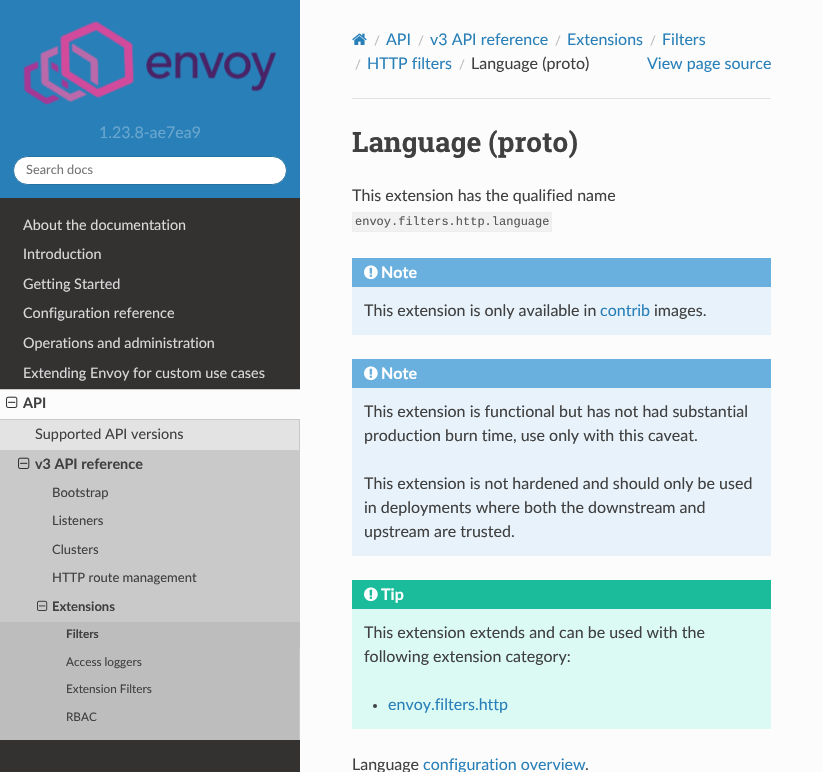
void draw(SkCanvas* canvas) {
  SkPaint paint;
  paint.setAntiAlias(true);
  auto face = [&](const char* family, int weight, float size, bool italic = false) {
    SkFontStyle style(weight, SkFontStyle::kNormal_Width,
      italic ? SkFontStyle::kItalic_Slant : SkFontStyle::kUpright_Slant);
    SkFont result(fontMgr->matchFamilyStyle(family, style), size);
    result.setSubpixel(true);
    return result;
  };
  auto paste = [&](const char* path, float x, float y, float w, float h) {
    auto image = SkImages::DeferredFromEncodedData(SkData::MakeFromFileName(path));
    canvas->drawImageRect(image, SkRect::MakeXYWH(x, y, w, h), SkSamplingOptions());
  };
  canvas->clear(0xfffcfcfc);
  paint.setColor(0xff343131);
  canvas->drawRect(SkRect::MakeXYWH(0, 198, 300, 574), paint);
  paint.setColor(0xff2980b9);
  canvas->drawRect(SkRect::MakeXYWH(0, 0, 300, 198), paint);
  paste("img/1.png", 23, 21, 253, 84);
  paint.setColor(0xffffffff);
  canvas->drawRoundRect(SkRect::MakeXYWH(13.5f, 156.5f, 273, 28), 14, 14, paint);
  paint.setStroke(true);
  paint.setStrokeWidth(1);
  paint.setColor(0xff2472a4);
  canvas->drawRoundRect(SkRect::MakeXYWH(13.5f, 156.5f, 273, 28), 14, 14, paint);
  paint.setStroke(false);
  {
    const struct { float x, y, w, h; SkColor color; } items[] = {
      {0, 420, 299, 30, 0xffe3e3e3},
      {0, 390, 300, 29, 0xfffcfcfc},
      {0, 389, 300, 1, 0xffc9c9c9},
      {0, 419, 300, 1, 0xffc9c9c9},
    };
    for (auto [x, y, w, h, color] : items) {
      paint.setColor(color);
      canvas->drawRect(SkRect::MakeXYWH(x, y, w, h), paint);
    }
  }
  paste("img/2.png", 6, 396, 12, 12);
  canvas->drawRect(SkRect::MakeXYWH(299, 420, 1, 30), paint);
  canvas->drawRect(SkRect::MakeXYWH(0, 450, 300, 172), paint);
  paste("img/3.png", 18, 457, 12, 12);
  paste("img/4.png", 37, 600, 11, 11);
  {
    const struct { float x, y, w, h; SkColor color; } items[] = {
      {0, 622, 300, 27, 0xffbdbdbd},
      {0, 649, 299, 91, 0xffbdbdbd},
      {299, 649, 1, 91, 0xffc9c9c9},
    };
    for (auto [x, y, w, h, color] : items) {
      paint.setColor(color);
      canvas->drawRect(SkRect::MakeXYWH(x, y, w, h), paint);
    }
  }
  paste("img/5.png", 352, 33, 15, 12);
  paint.setColor(0xffe1e4e5);
  canvas->drawRect(SkRect::MakeXYWH(352, 98, 419, 1), paint);
  paint.setColor(0xfff1f1f1);
  canvas->drawRect(SkRect::MakeXYWH(352.5f, 212.5f, 199, 19), paint);
  paint.setStroke(true);
  paint.setColor(0xffeeeeee);
  canvas->drawRect(SkRect::MakeXYWH(352.5f, 212.5f, 199, 19), paint);
  paint.setStroke(false);
  paint.setColor(0xffe7f2fa);
  canvas->drawRect(SkRect::MakeXYWH(352, 287, 419, 48), paint);
  paint.setColor(0xff6ab0de);
  canvas->drawRect(SkRect::MakeXYWH(352, 258, 419, 29), paint);
  paste("img/6.png", 364, 265, 14, 15);
  paint.setColor(0xffe7f2fa);
  canvas->drawRect(SkRect::MakeXYWH(352, 388, 419, 168), paint);
  paint.setColor(0xff6ab0de);
  canvas->drawRect(SkRect::MakeXYWH(352, 359, 419, 29), paint);
  paste("img/6.png", 364, 366, 14, 15);
  paint.setColor(0xffdbfaf4);
  canvas->drawRect(SkRect::MakeXYWH(352, 609, 419, 120), paint);
  paint.setColor(0xff1abc9c);
  canvas->drawRect(SkRect::MakeXYWH(352, 580, 419, 29), paint);
  paste("img/7.png", 364, 587, 14, 15);
  paint.setColor(0xff404040);
  canvas->drawCircle(375, 706, 2, paint);
  auto f0 = face("Lato", 400, 16);
  paint.setColor(0xff69a6ce);
  canvas->drawString("1.23.8-ae7ea9", 99, 138, f0, paint);
  auto f1 = face("Lato", 400, 12.75f);
  paint.setColor(0xff757575);
  canvas->drawString("Search docs", 26, 174, f1, paint);
  auto f2 = face("Lato", 400, 14.4f);
  paint.setColor(0xffd9d9d9);
  {
    const struct { const char* s; float x, y; } items[] = {
      {"About the documentation", 23, 230},
      {"Introduction", 23, 259},
      {"Getting Started", 23, 289},
      {"Configuration reference", 23, 318},
      {"Operations and administration", 23, 348},
      {"Extending Envoy for custom use cases", 23, 378},
    };
    for (auto [s, x, y] : items) {
      canvas->drawString(s, x, y, f2, paint);
    }
  }
  auto f3 = face("Lato", 700, 14.4f);
  paint.setColor(0xff404040);
  canvas->drawString("API", 23, 408, f3, paint);
  canvas->drawString("Supported API versions", 35, 439, f2, paint);
  canvas->drawString("v3 API reference", 35, 469, f3, paint);
  auto f4 = face("Lato", 400, 13);
  {
    const struct { const char* s; float x, y; } items[] = {
      {"Bootstrap", 52, 497},
      {"Listeners", 52, 525},
      {"Clusters", 52, 554},
      {"HTTP route management", 52, 582},
    };
    for (auto [s, x, y] : items) {
      canvas->drawString(s, x, y, f4, paint);
    }
  }
  auto f5 = face("Lato", 700, 13);
  canvas->drawString("Extensions", 52, 611, f5, paint);
  auto f6 = face("Lato", 700, 11.75f);
  canvas->drawString("Filters", 66, 638, f6, paint);
  auto f7 = face("Lato", 400, 11.75f);
  {
    const struct { const char* s; float x, y; } items[] = {
      {"Access loggers", 66, 666},
      {"Extension Filters", 66, 693},
      {"RBAC", 66, 721},
    };
    for (auto [s, x, y] : items) {
      canvas->drawString(s, x, y, f7, paint);
    }
  }
  paint.setColor(0xffbbbbbb);
  canvas->drawString("/", 374, 45, f4, paint);
  paint.setColor(0xff2980b9);
  canvas->drawString("API", 386, 45, f0, paint);
  paint.setColor(0xffbbbbbb);
  canvas->drawString("/", 418, 45, f4, paint);
  paint.setColor(0xff2980b9);
  canvas->drawString("v3 API reference", 430, 45, f0, paint);
  paint.setColor(0xffbbbbbb);
  canvas->drawString("/", 555, 45, f4, paint);
  paint.setColor(0xff2980b9);
  canvas->drawString("Extensions", 567, 45, f0, paint);
  paint.setColor(0xffbbbbbb);
  canvas->drawString("/", 650, 45, f4, paint);
  paint.setColor(0xff2980b9);
  canvas->drawString("Filters", 662, 45, f0, paint);
  paint.setColor(0xffbbbbbb);
  canvas->drawString("/", 355, 69, f4, paint);
  paint.setColor(0xff2980b9);
  canvas->drawString("HTTP filters", 367, 69, f0, paint);
  paint.setColor(0xffbbbbbb);
  canvas->drawString("/", 459, 69, f4, paint);
  paint.setColor(0xff404040);
  canvas->drawString("Language (proto)", 471, 69, f0, paint);
  paint.setColor(0xff2980b9);
  canvas->drawString("View page source", 647, 69, f0, paint);
  auto f8 = face("Roboto Slab", 700, 28);
  paint.setColor(0xff404040);
  canvas->drawString("Language (proto)", 352, 152, f8, paint);
  canvas->drawString("This extension has the qualified name", 352, 201, f0, paint);
  auto f9 = face("Liberation Mono", 400, 12);
  paint.setColor(0xff555555);
  canvas->drawString("envoy.filters.http.language", 355, 225, f9, paint);
  auto f10 = face("Lato", 700, 16);
  paint.setColor(0xffffffff);
  canvas->drawString("Note", 381, 278, f10, paint);
  paint.setColor(0xff404040);
  canvas->drawString("This extension is only available in", 364, 316, f0, paint);
  paint.setColor(0xff2980b9);
  canvas->drawString("contrib", 600, 316, f0, paint);
  paint.setColor(0xff404040);
  canvas->drawString("images.", 654, 316, f0, paint);
  paint.setColor(0xffffffff);
  canvas->drawString("Note", 381, 379, f10, paint);
  paint.setColor(0xff404040);
  {
    const struct { const char* s; float x, y; } items[] = {
      {"This extension is functional but has not had substantial", 364, 417},
      {"production burn time, use only with this caveat.", 364, 441},
      {"This extension is not hardened and should only be used", 364, 489},
      {"in deployments where both the downstream and", 364, 513},
      {"upstream are trusted.", 364, 537},
    };
    for (auto [s, x, y] : items) {
      canvas->drawString(s, x, y, f0, paint);
    }
  }
  paint.setColor(0xffffffff);
  canvas->drawString("Tip", 381, 600, f10, paint);
  paint.setColor(0xff404040);
  canvas->drawString("This extension extends and can be used with the", 364, 638, f0, paint);
  canvas->drawString("following extension category:", 364, 662, f0, paint);
  paint.setColor(0xff2980b9);
  canvas->drawString("envoy.filters.http", 388, 710, f0, paint);
  paint.setColor(0xff404040);
  canvas->drawString("Language", 352, 770, f0, paint);
  paint.setColor(0xff2980b9);
  canvas->drawString("configuration overview", 423, 770, f0, paint);
  paint.setColor(0xff404040);
  canvas->drawString(".", 585, 770, f0, paint);
}
